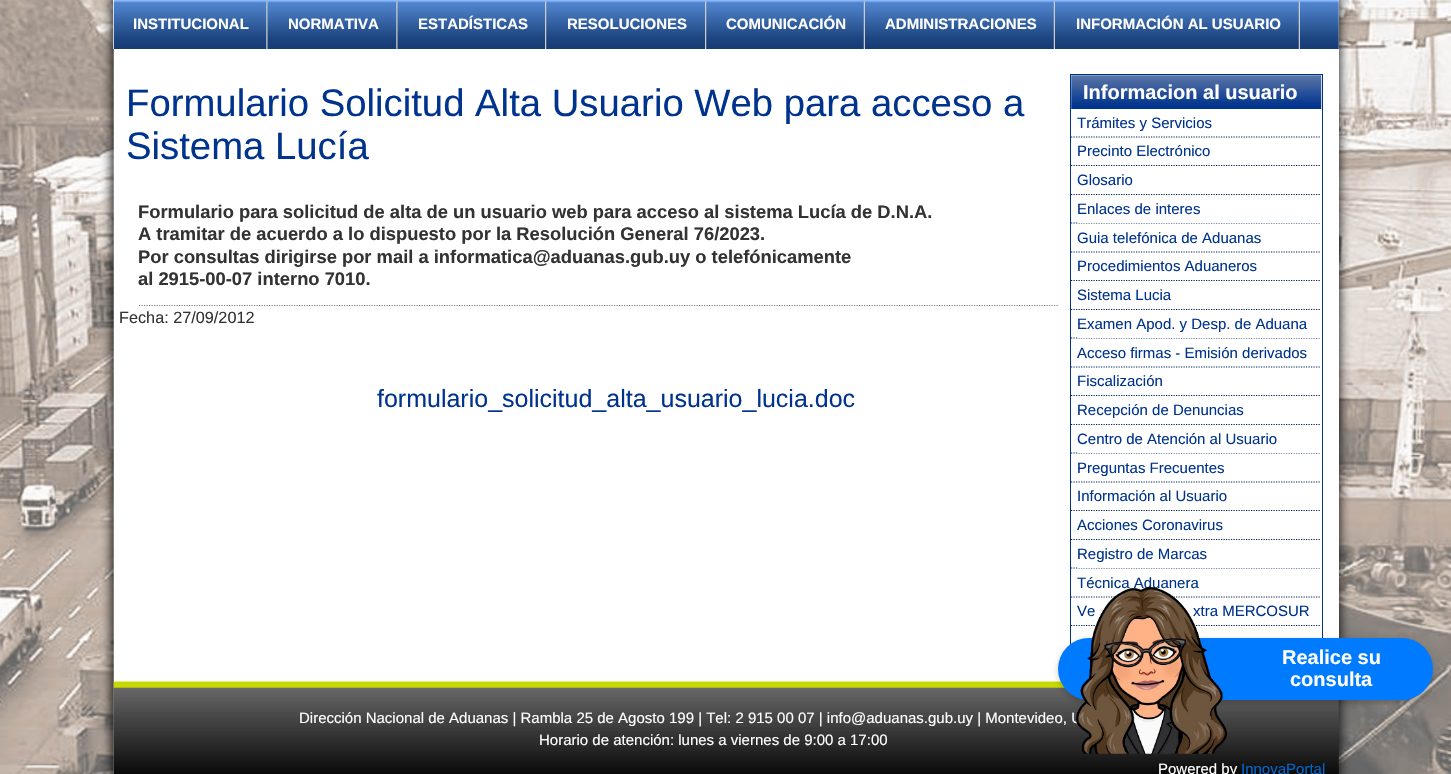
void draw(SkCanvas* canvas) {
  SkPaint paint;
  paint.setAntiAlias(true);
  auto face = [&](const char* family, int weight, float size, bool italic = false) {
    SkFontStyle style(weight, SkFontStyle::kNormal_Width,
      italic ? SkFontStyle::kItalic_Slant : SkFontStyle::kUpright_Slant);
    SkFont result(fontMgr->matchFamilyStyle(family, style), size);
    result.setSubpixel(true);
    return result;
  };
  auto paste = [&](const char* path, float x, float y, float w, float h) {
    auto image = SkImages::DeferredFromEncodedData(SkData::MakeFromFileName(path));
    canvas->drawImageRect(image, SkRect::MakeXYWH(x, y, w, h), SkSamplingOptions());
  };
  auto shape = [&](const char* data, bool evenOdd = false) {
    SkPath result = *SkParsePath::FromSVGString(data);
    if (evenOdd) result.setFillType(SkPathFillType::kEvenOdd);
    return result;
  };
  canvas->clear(0xffffffff);
  paste("img/1.png", 0, 0, 1451, 774);
  paint.setColor(0xffffffff);
  canvas->drawRect(SkRect::MakeXYWH(113, 0, 1226, 49), paint);
  paste("img/2.png", 113, 0, 1226, 49);
  paste("img/3.png", 266, 1, 2, 48);
  paste("img/3.png", 396, 1, 2, 48);
  paste("img/4.png", 545, 1, 2, 48);
  paste("img/4.png", 705, 1, 2, 48);
  paste("img/5.png", 863, 1, 2, 48);
  paste("img/5.png", 1053, 1, 2, 48);
  paste("img/5.png", 1298, 1, 2, 48);
  canvas->drawRect(SkRect::MakeXYWH(1337, 49, 2, 632), paint);
  paint.setStroke(true);
  paint.setStrokeWidth(1);
  paint.setColor(0xff00338e);
  canvas->drawRect(SkRect::MakeXYWH(1070.5f, 74.5f, 252, 581), paint);
  paste("img/8.png", 113, 681, 1226, 93);
  paint.setStroke(false);
  paint.setColor(0x33000000);
  paint.setMaskFilter(SkMaskFilter::MakeBlur(kNormal_SkBlurStyle, 3));
  canvas->drawRoundRect(SkRect::MakeXYWH(1058, 640, 375, 63), 31.5f, 31.5f, paint);
  paint.setMaskFilter(nullptr);
  paint.setColor(0xff007bff);
  canvas->drawRoundRect(SkRect::MakeXYWH(1058, 638, 375, 62), 31, 31, paint);
  canvas->save();
  canvas->clipRect(SkRect::MakeXYWH(114, 49, 944, 396));
  paint.setStroke(true);
  paint.setStrokeWidth(1.2f);
  paint.setColor(0xff808080);
  paint.setPathEffect(SkDashPathEffect::Make({{1.25f, 1.25f}}, 0));
  canvas->drawPath(shape("M139 305.5H1076"), paint);
  paint.setPathEffect(nullptr);
  canvas->restore();
  paste("img/7.png", 1071, 75, 251, 34);
  paint.setColor(0xff022458);
  paint.setPathEffect(SkDashPathEffect::Make({{1.25f, 1.25f}}, 0));
  canvas->drawPath(shape("M1071 137H1321"), paint);
  paint.setPathEffect(nullptr);
  paint.setPathEffect(SkDashPathEffect::Make({{1.25f, 1.25f}}, 0));
  canvas->drawPath(shape("M1071 165.5H1321"), paint);
  paint.setPathEffect(nullptr);
  paint.setStroke(false);
  paint.setColor(0xffffffff);
  canvas->drawRect(SkRect::MakeXYWH(1078, 164, 242, 1), paint);
  paint.setStroke(true);
  paint.setColor(0xff022458);
  paint.setPathEffect(SkDashPathEffect::Make({{1.25f, 1.25f}}, 0));
  canvas->drawPath(shape("M1071 194.5H1321"), paint);
  paint.setPathEffect(nullptr);
  paint.setStroke(false);
  paint.setColor(0xffffffff);
  canvas->drawRect(SkRect::MakeXYWH(1078, 166, 242, 28), paint);
  paint.setStroke(true);
  paint.setColor(0xff022458);
  paint.setPathEffect(SkDashPathEffect::Make({{1.25f, 1.25f}}, 0));
  canvas->drawPath(shape("M1071 223H1321"), paint);
  paint.setPathEffect(nullptr);
  paint.setStroke(false);
  paint.setColor(0xffffffff);
  canvas->drawRect(SkRect::MakeXYWH(1078, 195, 242, 28), paint);
  paint.setStroke(true);
  paint.setColor(0xff022458);
  paint.setPathEffect(SkDashPathEffect::Make({{1.25f, 1.25f}}, 0));
  canvas->drawPath(shape("M1071 252H1321"), paint);
  paint.setPathEffect(nullptr);
  paint.setPathEffect(SkDashPathEffect::Make({{1.25f, 1.25f}}, 0));
  canvas->drawPath(shape("M1071 280.5H1321"), paint);
  paint.setPathEffect(nullptr);
  paint.setStroke(false);
  paint.setColor(0xffffffff);
  canvas->drawRect(SkRect::MakeXYWH(1078, 279, 242, 1), paint);
  paint.setStroke(true);
  paint.setColor(0xff022458);
  paint.setPathEffect(SkDashPathEffect::Make({{1.25f, 1.25f}}, 0));
  canvas->drawPath(shape("M1071 309.5H1321"), paint);
  paint.setPathEffect(nullptr);
  paint.setStroke(false);
  paint.setColor(0xffffffff);
  canvas->drawRect(SkRect::MakeXYWH(1078, 281, 242, 28), paint);
  paint.setStroke(true);
  paint.setColor(0xff022458);
  paint.setPathEffect(SkDashPathEffect::Make({{1.25f, 1.25f}}, 0));
  canvas->drawPath(shape("M1071 338H1321"), paint);
  paint.setPathEffect(nullptr);
  paint.setStroke(false);
  paint.setColor(0xffffffff);
  canvas->drawRect(SkRect::MakeXYWH(1078, 310, 242, 28), paint);
  paint.setStroke(true);
  paint.setColor(0xff022458);
  paint.setPathEffect(SkDashPathEffect::Make({{1.25f, 1.25f}}, 0));
  canvas->drawPath(shape("M1071 367H1321"), paint);
  paint.setPathEffect(nullptr);
  paint.setPathEffect(SkDashPathEffect::Make({{1.25f, 1.25f}}, 0));
  canvas->drawPath(shape("M1071 395.5H1321"), paint);
  paint.setPathEffect(nullptr);
  paint.setStroke(false);
  paint.setColor(0xffffffff);
  canvas->drawRect(SkRect::MakeXYWH(1078, 394, 242, 1), paint);
  paint.setStroke(true);
  paint.setColor(0xff022458);
  paint.setPathEffect(SkDashPathEffect::Make({{1.25f, 1.25f}}, 0));
  canvas->drawPath(shape("M1071 424.5H1321"), paint);
  paint.setPathEffect(nullptr);
  paint.setStroke(false);
  paint.setColor(0xffffffff);
  canvas->drawRect(SkRect::MakeXYWH(1078, 396, 242, 28), paint);
  paint.setStroke(true);
  paint.setColor(0xff022458);
  paint.setPathEffect(SkDashPathEffect::Make({{1.25f, 1.25f}}, 0));
  canvas->drawPath(shape("M1071 453H1321"), paint);
  paint.setPathEffect(nullptr);
  paint.setStroke(false);
  paint.setColor(0xffffffff);
  canvas->drawRect(SkRect::MakeXYWH(1078, 425, 242, 28), paint);
  paint.setStroke(true);
  paint.setColor(0xff022458);
  paint.setPathEffect(SkDashPathEffect::Make({{1.25f, 1.25f}}, 0));
  canvas->drawPath(shape("M1071 482H1321"), paint);
  paint.setPathEffect(nullptr);
  paint.setPathEffect(SkDashPathEffect::Make({{1.25f, 1.25f}}, 0));
  canvas->drawPath(shape("M1071 510.5H1321"), paint);
  paint.setPathEffect(nullptr);
  paint.setStroke(false);
  paint.setColor(0xffffffff);
  canvas->drawRect(SkRect::MakeXYWH(1078, 509, 242, 1), paint);
  paint.setStroke(true);
  paint.setColor(0xff022458);
  paint.setPathEffect(SkDashPathEffect::Make({{1.25f, 1.25f}}, 0));
  canvas->drawPath(shape("M1071 539.5H1321"), paint);
  paint.setPathEffect(nullptr);
  paint.setStroke(false);
  paint.setColor(0xffffffff);
  canvas->drawRect(SkRect::MakeXYWH(1078, 511, 242, 28), paint);
  paint.setStroke(true);
  paint.setColor(0xff022458);
  paint.setPathEffect(SkDashPathEffect::Make({{1.25f, 1.25f}}, 0));
  canvas->drawPath(shape("M1071 568H1321"), paint);
  paint.setPathEffect(nullptr);
  paint.setStroke(false);
  paint.setColor(0xffffffff);
  canvas->drawRect(SkRect::MakeXYWH(1078, 540, 242, 28), paint);
  paint.setStroke(true);
  paint.setColor(0xff022458);
  paint.setPathEffect(SkDashPathEffect::Make({{1.25f, 1.25f}}, 0));
  canvas->drawPath(shape("M1071 597H1321"), paint);
  paint.setPathEffect(nullptr);
  paint.setPathEffect(SkDashPathEffect::Make({{1.25f, 1.25f}}, 0));
  canvas->drawPath(shape("M1071 625.5H1321"), paint);
  paint.setPathEffect(nullptr);
  paint.setStroke(false);
  paint.setColor(0xffffffff);
  canvas->drawRect(SkRect::MakeXYWH(1078, 624, 242, 1), paint);
  canvas->drawRect(SkRect::MakeXYWH(1078, 626, 242, 1), paint);
  auto f0 = face("Liberation Sans", 700, 15);
  {
    const struct { const char* s; float x, y; } items[] = {
      {"INSTITUCIONAL", 133, 29},
      {"NORMATIVA", 288, 29},
      {"ESTADÍSTICAS", 418, 29},
      {"RESOLUCIONES", 567, 29},
      {"COMUNICACIÓN", 726, 29},
      {"ADMINISTRACIONES", 885, 29},
      {"INFORMACIÓN AL USUARIO", 1076, 29},
    };
    for (auto [s, x, y] : items) {
      canvas->drawString(s, x, y, f0, paint);
    }
  }
  auto f1 = face("Liberation Sans", 700, 20);
  canvas->drawString("Realice su", 1282, 664, f1, paint);
  canvas->drawString("consulta", 1290, 686, f1, paint);
  auto f2 = face("Liberation Sans", 400, 38.3f);
  paint.setColor(0xff00338e);
  canvas->drawString("Formulario Solicitud Alta Usuario Web para acceso a", 126, 116, f2, paint);
  canvas->drawString("Sistema Lucía", 126, 159, f2, paint);
  auto f3 = face("Liberation Sans", 700, 18.35f);
  paint.setColor(0xff333333);
  {
    const struct { const char* s; float x, y; } items[] = {
      {"Formulario para solicitud de alta de un usuario web para acceso al sistema Lucía de D.N.A.", 138, 218},
      {"A tramitar de acuerdo a lo dispuesto por la Resolución General 76/2023.", 138, 240},
      {"Por consultas dirigirse por mail a informatica@aduanas.gub.uy o telefónicamente", 138, 263},
      {"al 2915-00-07 interno 7010.", 138, 285},
    };
    for (auto [s, x, y] : items) {
      canvas->drawString(s, x, y, f3, paint);
    }
  }
  auto f4 = face("Liberation Sans", 400, 16.25f);
  canvas->drawString("Fecha: 27/09/2012", 119, 323, f4, paint);
  auto f5 = face("Liberation Sans", 400, 25);
  paint.setColor(0xff00338e);
  canvas->drawString("formulario_solicitud_alta_usuario_lucia.doc", 377, 407, f5, paint);
  paint.setColor(0xffffffff);
  canvas->drawString("Informacion al usuario", 1083, 99, f1, paint);
  auto f6 = face("Liberation Sans", 400, 15);
  paint.setColor(0xff00338e);
  {
    const struct { const char* s; float x, y; } items[] = {
      {"Trámites y Servicios", 1077, 128},
      {"Precinto Electrónico", 1077, 156},
      {"Glosario", 1077, 185},
      {"Enlaces de interes", 1077, 214},
      {"Guia telefónica de Aduanas", 1077, 243},
      {"Procedimientos Aduaneros", 1077, 271},
      {"Sistema Lucia", 1077, 300},
      {"Examen Apod. y Desp. de Aduana", 1077, 329},
      {"Acceso firmas - Emisión derivados", 1077, 358},
      {"Fiscalización", 1077, 386},
      {"Recepción de Denuncias", 1077, 415},
      {"Centro de Atención al Usuario", 1077, 444},
      {"Preguntas Frecuentes", 1077, 473},
      {"Información al Usuario", 1077, 501},
      {"Acciones Coronavirus", 1077, 530},
      {"Registro de Marcas", 1077, 559},
      {"Técnica Aduanera", 1077, 588},
      {"Ve", 1077, 616},
      {"xtra MERCOSUR", 1193, 616},
    };
    for (auto [s, x, y] : items) {
      canvas->drawString(s, x, y, f6, paint);
    }
  }
  paint.setColor(0xffffffff);
  canvas->drawString("Dirección Nacional de Aduanas | Rambla 25 de Agosto 199 | Tel: 2 915 00 07 | info@aduanas.gub.uy | Montevideo, U", 299, 723, f6, paint);
  paste("img/6.png", 1076, 587, 152, 167);
  canvas->drawString("Horario de atención: lunes a viernes de 9:00 a 17:00", 539, 745, f6, paint);
  canvas->drawString("Powered by", 1158, 774, f6, paint);
  paint.setColor(0xff0066cc);
  canvas->drawString("InnovaPortal", 1241, 774, f6, paint);
}
